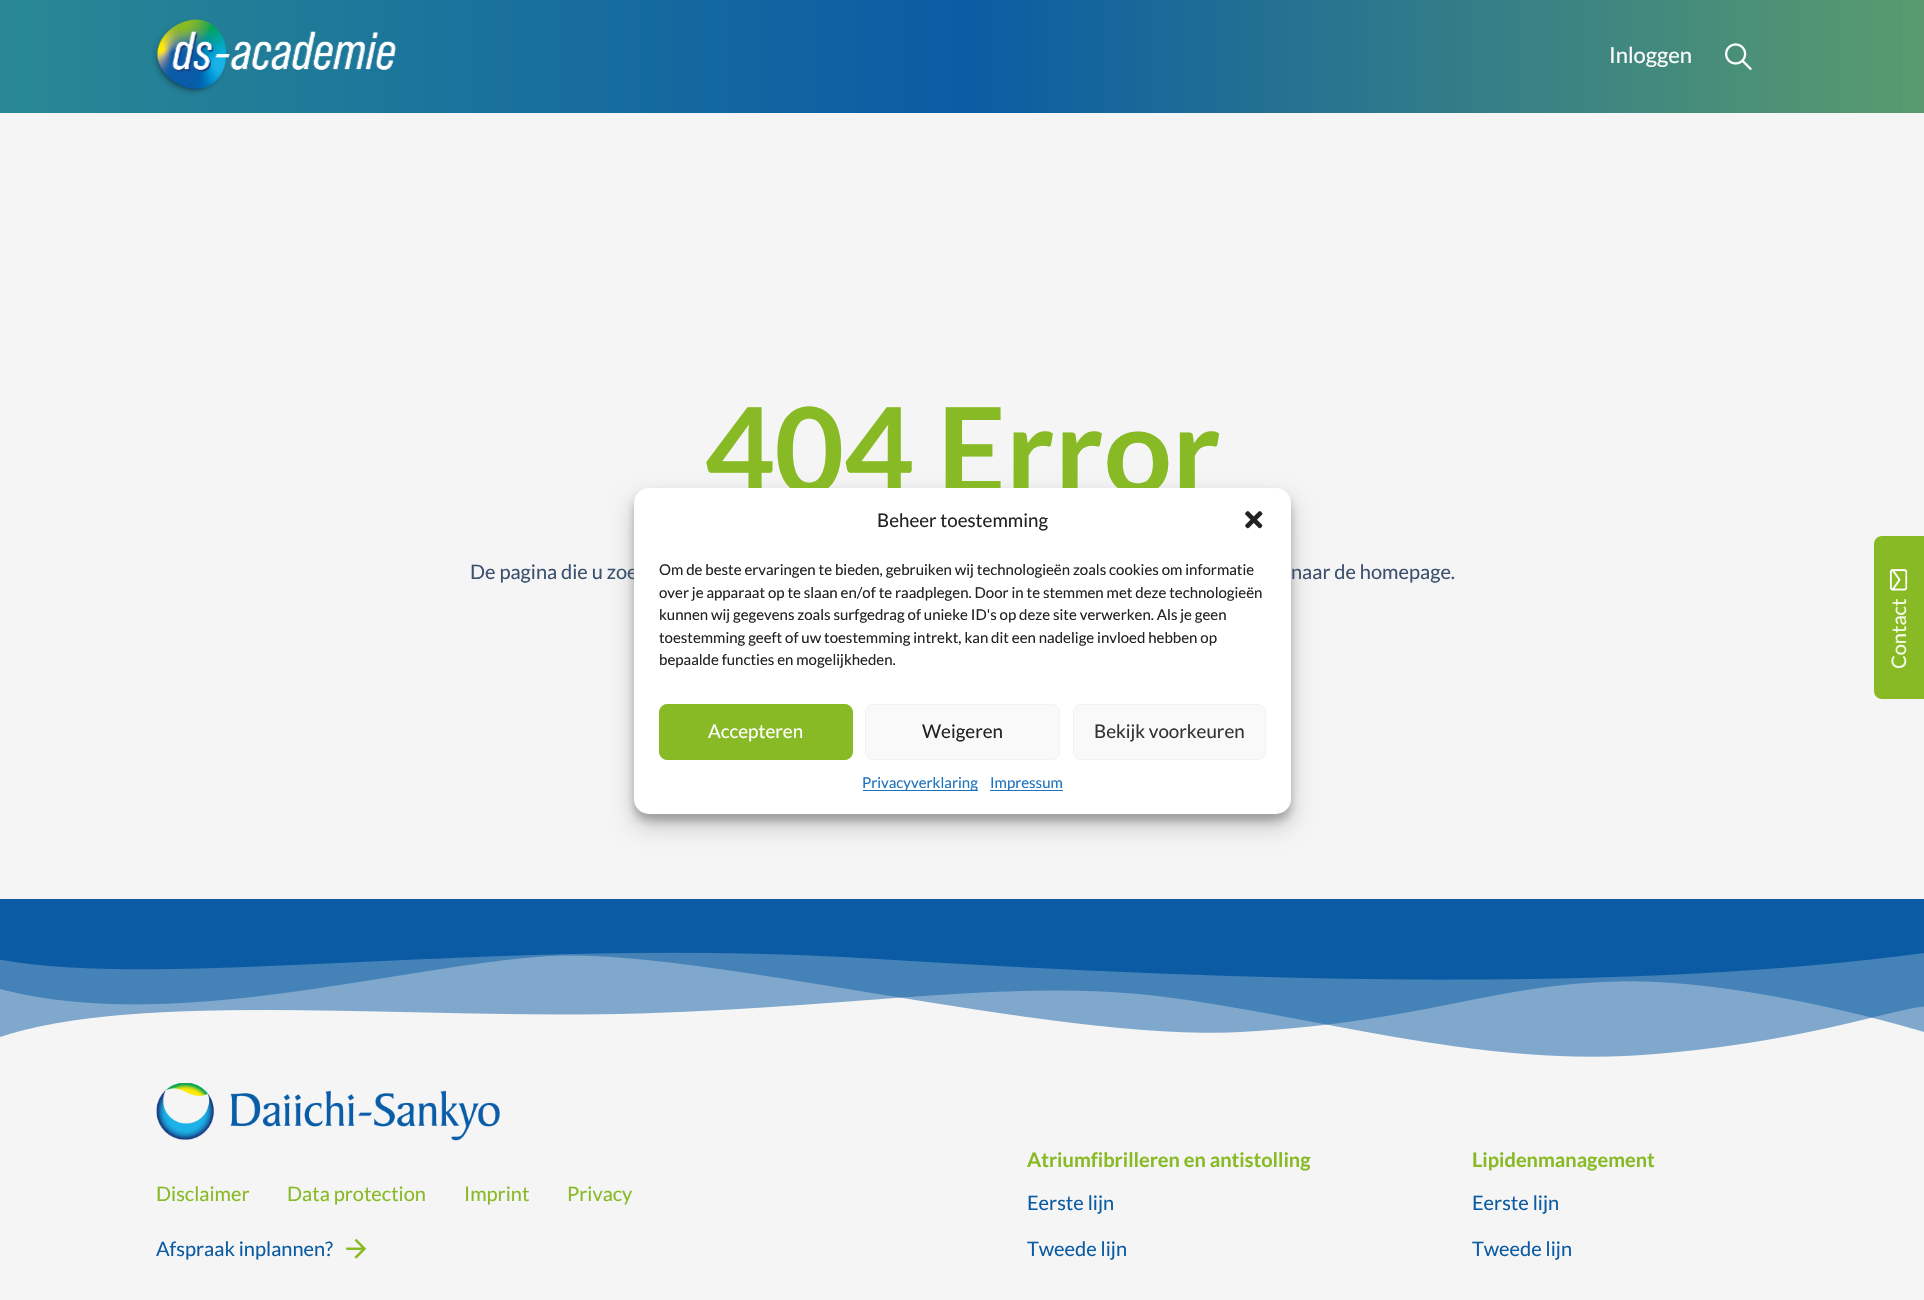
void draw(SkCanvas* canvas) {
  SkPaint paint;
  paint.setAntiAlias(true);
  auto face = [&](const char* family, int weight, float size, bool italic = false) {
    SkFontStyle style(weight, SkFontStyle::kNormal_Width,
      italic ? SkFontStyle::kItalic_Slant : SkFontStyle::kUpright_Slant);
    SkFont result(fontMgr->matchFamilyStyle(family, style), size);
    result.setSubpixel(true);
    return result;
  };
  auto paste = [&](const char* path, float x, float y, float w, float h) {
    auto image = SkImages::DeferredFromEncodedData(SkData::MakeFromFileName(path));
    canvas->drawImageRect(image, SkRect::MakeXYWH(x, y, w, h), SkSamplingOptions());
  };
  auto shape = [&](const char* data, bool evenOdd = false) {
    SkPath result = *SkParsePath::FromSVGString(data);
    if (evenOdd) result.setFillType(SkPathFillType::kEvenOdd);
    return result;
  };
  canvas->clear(0xfff5f5f5);
  {
    const SkColor colors[] = {0xff298894, 0xff0a5ca4, 0xff599b6e};
    const float stops[] = {0, 0.5f, 1};
    const SkPoint ends[] = {{0, 56}, {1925, 56}};
    paint.setShader(SkGradientShader::MakeLinear(ends, colors, stops, 3, SkTileMode::kClamp));
    paint.setAlpha(255);
  }
  canvas->drawRect(SkRect::MakeXYWH(0, 0, 1924, 113), paint);
  paste("img/1.png", 152, 19, 244, 76);
  paste("img/2.png", 1725, 43, 27, 27);
  paint.setShader(nullptr);
  paint.setColor(0x3b000000);
  paint.setMaskFilter(SkMaskFilter::MakeBlur(kNormal_SkBlurStyle, 4));
  canvas->drawRoundRect(SkRect::MakeXYWH(634, 495, 657, 326), 15, 15, paint);
  paint.setMaskFilter(nullptr);
  paint.setColor(0x30000000);
  paint.setMaskFilter(SkMaskFilter::MakeBlur(kNormal_SkBlurStyle, 12.5f));
  canvas->drawRoundRect(SkRect::MakeXYWH(634, 500, 657, 326), 15, 15, paint);
  paint.setMaskFilter(nullptr);
  paint.setColor(0xff88ba25);
  canvas->drawPath(shape("M1874 691V544C1874 540 1877 536 1882 536H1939V699H1882C1877 699 1874 695 1874 691Z"), paint);
  paste("img/4.png", 1889, 569, 19, 22);
  paint.setColor(0xff0a5ba3);
  canvas->drawRect(SkRect::MakeXYWH(0, 899, 1924, 34), paint);
  paste("img/5.png", 0, 933, 1924, 124);
  paste("img/6.png", 156, 1083, 344, 58);
  paste("img/7.png", 346, 1238, 21, 21);
  auto f0 = face("Lato", 400, 22);
  paint.setColor(0xffffffff);
  canvas->drawString("Inloggen", 1609, 63, f0, paint);
  auto f1 = face("Lato", 700, 120);
  paint.setColor(0xff88ba25);
  canvas->drawString("404 Error", 705, 494, f1, paint);
  auto f2 = face("Lato", 400, 20);
  paint.setColor(0xff3b516d);
  canvas->drawString("De pagina die u zoe", 470, 579, f2, paint);
  canvas->drawString("naar de homepage.", 1291, 579, f2, paint);
  paint.setColor(0xffffffff);
  canvas->drawRoundRect(SkRect::MakeXYWH(634, 488, 657, 326), 15, 15, paint);
  auto f3 = face("Lato", 400, 18.75f);
  paint.setColor(0xff222222);
  canvas->drawString("Beheer toestemming", 877, 527, f3, paint);
  paste("img/3.png", 1245, 511, 18, 18);
  auto f4 = face("Lato", 400, 15);
  {
    const struct { const char* s; float x, y; } items[] = {
      {"Om de beste ervaringen te bieden, gebruiken wij technologieën zoals cookies om informatie", 659, 575},
      {"over je apparaat op te slaan en/of te raadplegen. Door in te stemmen met deze technologieën", 659, 598},
      {"kunnen wij gegevens zoals surfgedrag of unieke ID's op deze site verwerken. Als je geen", 659, 620},
      {"toestemming geeft of uw toestemming intrekt, kan dit een nadelige invloed hebben op", 659, 643},
      {"bepaalde functies en mogelijkheden.", 659, 665},
    };
    for (auto [s, x, y] : items) {
      canvas->drawString(s, x, y, f4, paint);
    }
  }
  paint.setColor(0xff88ba25);
  canvas->drawRoundRect(SkRect::MakeXYWH(659.5f, 704.5f, 193, 55), 7.5f, 7.5f, paint);
  paint.setStroke(true);
  paint.setStrokeWidth(1);
  canvas->drawRoundRect(SkRect::MakeXYWH(659.5f, 704.5f, 193, 55), 7.5f, 7.5f, paint);
  paint.setStroke(false);
  paint.setColor(0xffffffff);
  canvas->drawString("Accepteren", 708, 738, f3, paint);
  paint.setColor(0xfff9f9f9);
  canvas->drawRoundRect(SkRect::MakeXYWH(865.5f, 704.5f, 194, 55), 7.5f, 7.5f, paint);
  paint.setStroke(true);
  paint.setColor(0xfff2f2f2);
  canvas->drawRoundRect(SkRect::MakeXYWH(865.5f, 704.5f, 194, 55), 7.5f, 7.5f, paint);
  paint.setStroke(false);
  paint.setColor(0xff222222);
  canvas->drawString("Weigeren", 922, 738, f3, paint);
  paint.setColor(0xfff9f9f9);
  canvas->drawRoundRect(SkRect::MakeXYWH(1073.5f, 704.5f, 192, 55), 7.5f, 7.5f, paint);
  paint.setStroke(true);
  paint.setColor(0xfff2f2f2);
  canvas->drawRoundRect(SkRect::MakeXYWH(1073.5f, 704.5f, 192, 55), 7.5f, 7.5f, paint);
  paint.setStroke(false);
  paint.setColor(0xff333333);
  canvas->drawString("Bekijk voorkeuren", 1094, 738, f3, paint);
  paint.setColor(0xff1e73be);
  canvas->drawRect(SkRect::MakeXYWH(863, 790, 115, 1), paint);
  canvas->drawString("Privacyverklaring", 862, 788, f4, paint);
  canvas->drawRect(SkRect::MakeXYWH(990, 790, 73, 1), paint);
  canvas->drawString("Impressum", 990, 788, f4, paint);
  paint.setColor(0xfff5fbea);
  canvas->save();
  canvas->rotate(-90, 1906, 669);
  canvas->drawString("Contact", 1906, 669, f2, paint);
  canvas->restore();
  paint.setColor(0xff88ba25);
  {
    const struct { const char* s; float x, y; } items[] = {
      {"Disclaimer", 156, 1201},
      {"Data protection", 287, 1201},
      {"Imprint", 464, 1201},
      {"Privacy", 567, 1201},
    };
    for (auto [s, x, y] : items) {
      canvas->drawString(s, x, y, f2, paint);
    }
  }
  paint.setColor(0xff0a5ba3);
  canvas->drawString("Afspraak inplannen?", 156, 1256, f2, paint);
  auto f5 = face("Lato", 700, 20);
  paint.setColor(0xff88ba25);
  canvas->drawString("Atriumfibrilleren en antistolling", 1027, 1167, f5, paint);
  paint.setColor(0xff0a5ba3);
  canvas->drawString("Eerste lijn", 1027, 1210, f2, paint);
  canvas->drawString("Tweede lijn", 1027, 1256, f2, paint);
  paint.setColor(0xff88ba25);
  canvas->drawString("Lipidenmanagement", 1472, 1167, f5, paint);
  paint.setColor(0xff0a5ba3);
  canvas->drawString("Eerste lijn", 1472, 1210, f2, paint);
  canvas->drawString("Tweede lijn", 1472, 1256, f2, paint);
}
